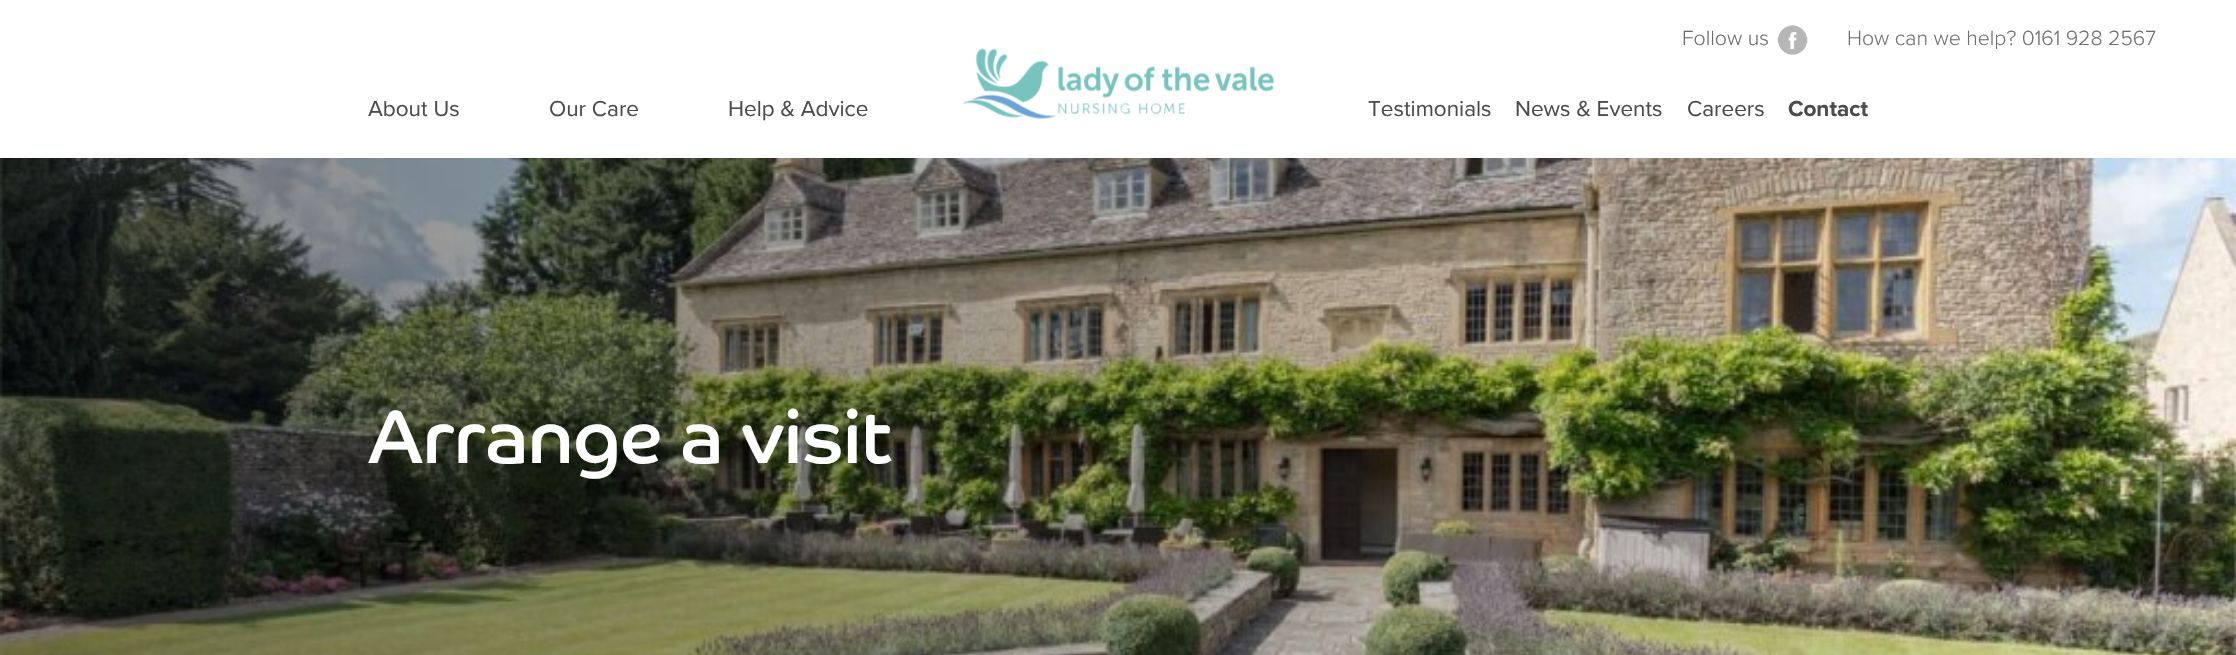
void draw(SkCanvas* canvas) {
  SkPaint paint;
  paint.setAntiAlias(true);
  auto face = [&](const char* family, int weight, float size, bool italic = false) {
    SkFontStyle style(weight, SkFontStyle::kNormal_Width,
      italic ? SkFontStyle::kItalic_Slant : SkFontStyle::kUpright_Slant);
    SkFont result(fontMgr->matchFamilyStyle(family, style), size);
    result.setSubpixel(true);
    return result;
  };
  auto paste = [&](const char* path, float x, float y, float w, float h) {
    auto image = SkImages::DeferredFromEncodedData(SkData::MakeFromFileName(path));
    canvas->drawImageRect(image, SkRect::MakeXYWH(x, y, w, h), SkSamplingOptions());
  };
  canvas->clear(0xffffffff);
  paste("img/1.png", 1777, 25, 31, 30);
  paste("img/2.png", 963, 48, 312, 71);
  paste("img/3.png", 0, 158, 2236, 497);
  auto f0 = face("Proxima Nova", 300, 21.25f);
  paint.setColor(0xff6a6a6a);
  canvas->drawString("Follow us", 1682, 45, f0, paint);
  paint.setColor(0xff706f6f);
  canvas->drawString("How can we help? 0161 928 2567", 1847, 45, f0, paint);
  auto f1 = face("Proxima Nova", 400, 22.5f);
  paint.setColor(0xff4b4b4b);
  {
    const struct { const char* s; float x, y; } items[] = {
      {"About Us", 368, 116},
      {"Our Care", 549, 116},
      {"Help & Advice", 728, 116},
      {"Testimonials", 1368, 116},
      {"News & Events", 1515, 116},
      {"Careers", 1687, 116},
    };
    for (auto [s, x, y] : items) {
      canvas->drawString(s, x, y, f1, paint);
    }
  }
  auto f2 = face("Proxima Nova", 700, 22.5f);
  canvas->drawString("Contact", 1788, 116, f2, paint);
  auto f3 = face("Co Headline", 400, 75);
  paint.setColor(0xffffffff);
  canvas->drawString("Arrange a visit", 368, 463, f3, paint);
}
